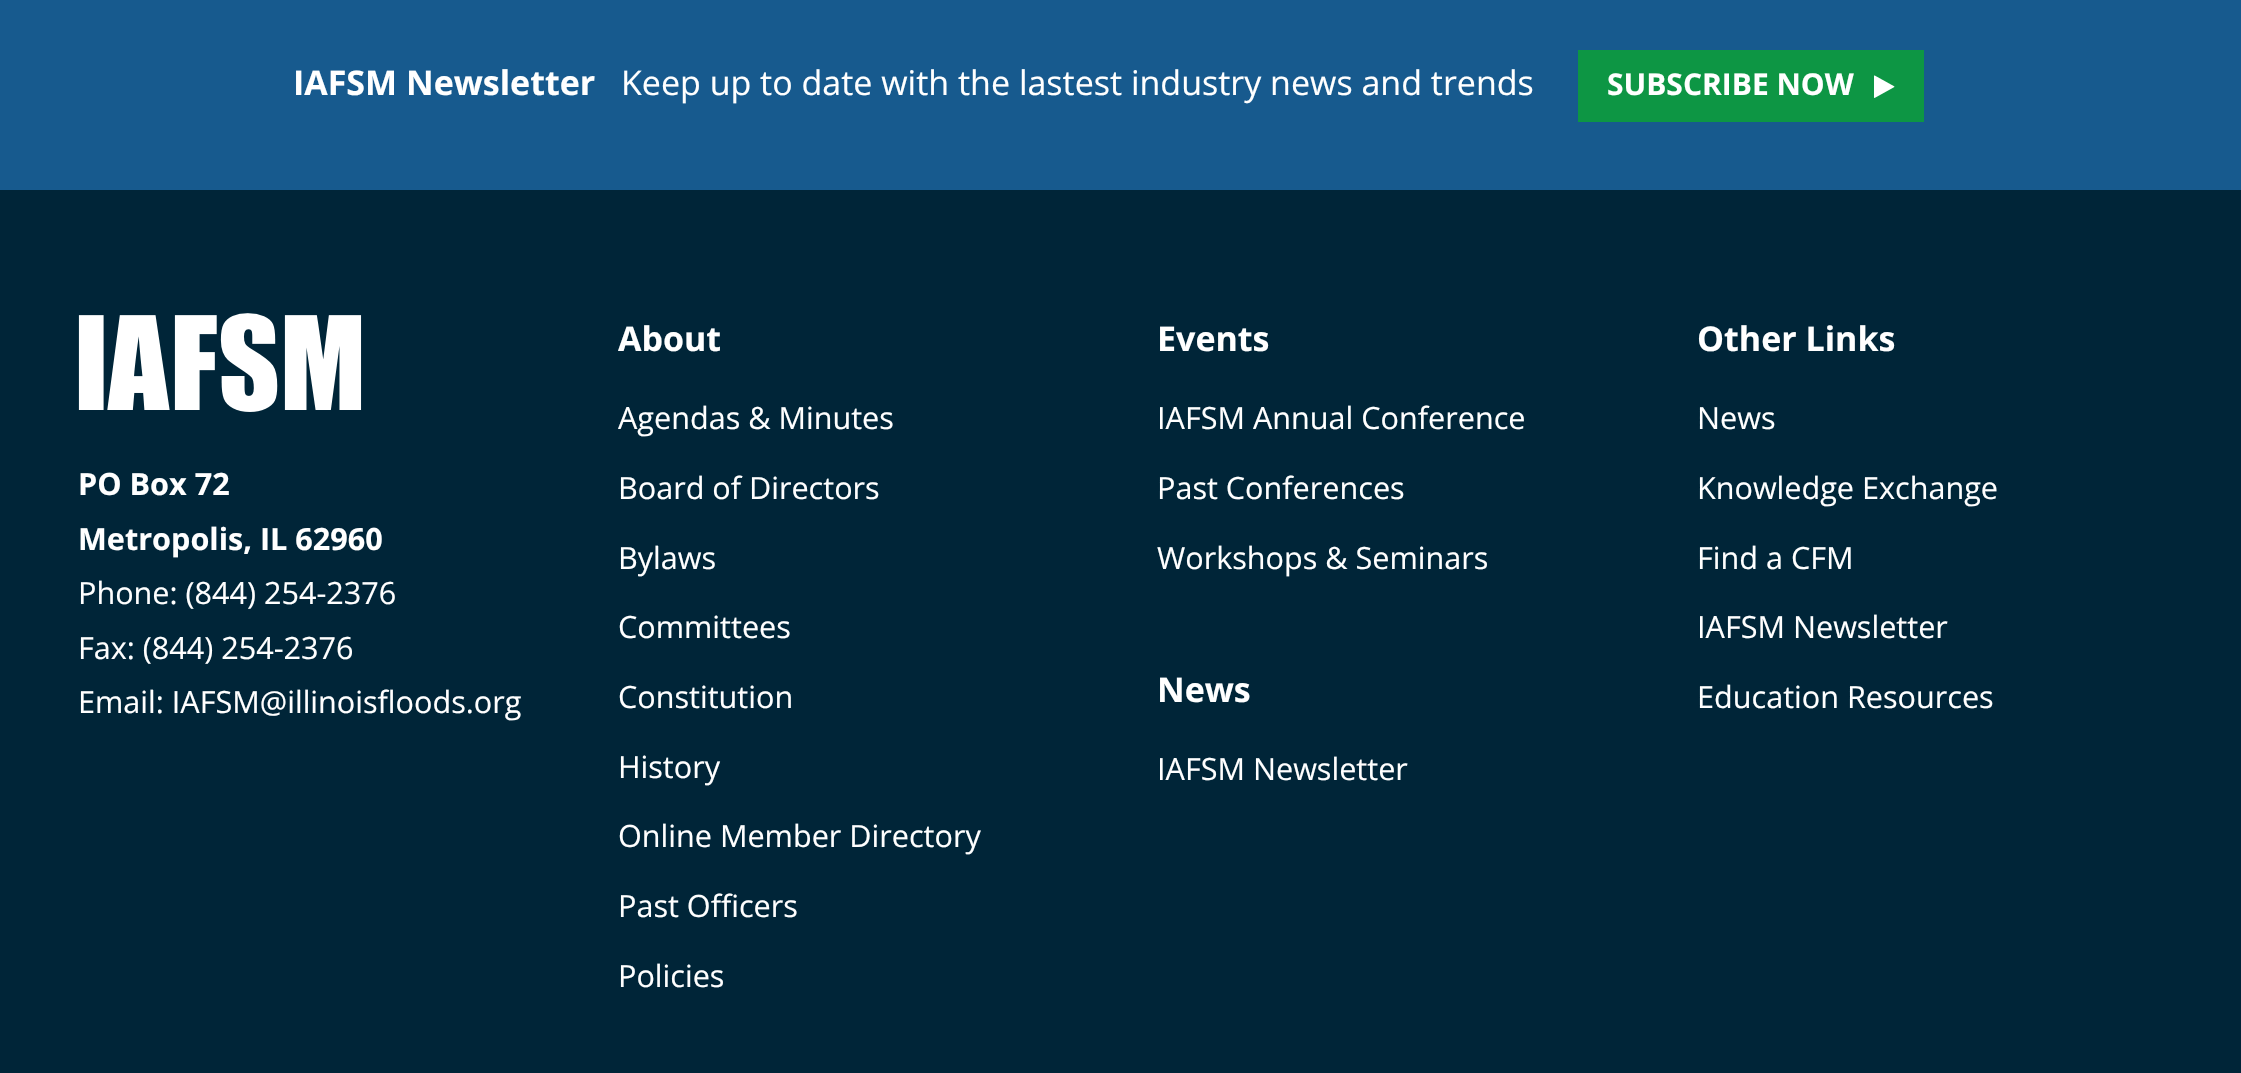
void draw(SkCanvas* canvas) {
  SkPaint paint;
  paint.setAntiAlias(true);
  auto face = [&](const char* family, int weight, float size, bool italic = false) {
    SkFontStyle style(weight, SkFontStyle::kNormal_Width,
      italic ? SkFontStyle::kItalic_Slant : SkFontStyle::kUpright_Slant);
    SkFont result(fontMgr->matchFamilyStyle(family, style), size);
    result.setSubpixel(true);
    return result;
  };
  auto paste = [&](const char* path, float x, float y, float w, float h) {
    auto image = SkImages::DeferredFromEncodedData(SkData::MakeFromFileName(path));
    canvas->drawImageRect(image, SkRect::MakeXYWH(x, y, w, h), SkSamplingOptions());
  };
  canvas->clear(0xff002538);
  paint.setColor(0xff175a8e);
  canvas->drawRect(SkRect::MakeXYWH(0, 0, 2241, 190), paint);
  paint.setColor(0xff0d9644);
  canvas->drawRect(SkRect::MakeXYWH(1578, 50, 346, 72), paint);
  paste("img/1.png", 1874, 75, 21, 23);
  paste("img/2.png", 78, 313, 284, 99);
  auto f0 = face("Open Sans", 700, 34);
  paint.setColor(0xffffffff);
  canvas->drawString("IAFSM Newsletter", 293, 95, f0, paint);
  auto f1 = face("Open Sans", 400, 34);
  canvas->drawString("Keep up to date with the lastest industry news and trends", 621, 95, f1, paint);
  auto f2 = face("Open Sans", 700, 30);
  canvas->drawString("SUBSCRIBE NOW", 1607, 95, f2, paint);
  auto f3 = face("Open Sans", 700, 30.6f);
  canvas->drawString("PO Box 72", 78, 495, f3, paint);
  canvas->drawString("Metropolis, IL 62960", 78, 550, f3, paint);
  auto f4 = face("Open Sans", 400, 30.6f);
  {
    const struct { const char* s; float x, y; } items[] = {
      {"Phone: (844) 254-2376", 78, 604},
      {"Fax: (844) 254-2376", 78, 659},
      {"Email: IAFSM@illinoisfloods.org", 78, 713},
    };
    for (auto [s, x, y] : items) {
      canvas->drawString(s, x, y, f4, paint);
    }
  }
  canvas->drawString("About", 618, 351, f0, paint);
  {
    const struct { const char* s; float x, y; } items[] = {
      {"Agendas & Minutes", 618, 429},
      {"Board of Directors", 618, 499},
      {"Bylaws", 618, 569},
      {"Committees", 618, 638},
      {"Constitution", 618, 708},
      {"History", 618, 778},
      {"Online Member Directory", 618, 847},
      {"Past Officers", 618, 917},
      {"Policies", 618, 987},
    };
    for (auto [s, x, y] : items) {
      canvas->drawString(s, x, y, f4, paint);
    }
  }
  canvas->drawString("Events", 1157, 351, f0, paint);
  {
    const struct { const char* s; float x, y; } items[] = {
      {"IAFSM Annual Conference", 1157, 429},
      {"Past Conferences", 1157, 499},
      {"Workshops & Seminars", 1157, 569},
    };
    for (auto [s, x, y] : items) {
      canvas->drawString(s, x, y, f4, paint);
    }
  }
  canvas->drawString("News", 1157, 702, f0, paint);
  canvas->drawString("IAFSM Newsletter", 1157, 780, f4, paint);
  canvas->drawString("Other Links", 1697, 351, f0, paint);
  {
    const struct { const char* s; float x, y; } items[] = {
      {"News", 1697, 429},
      {"Knowledge Exchange", 1697, 499},
      {"Find a CFM", 1697, 569},
      {"IAFSM Newsletter", 1697, 638},
      {"Education Resources", 1697, 708},
    };
    for (auto [s, x, y] : items) {
      canvas->drawString(s, x, y, f4, paint);
    }
  }
}
